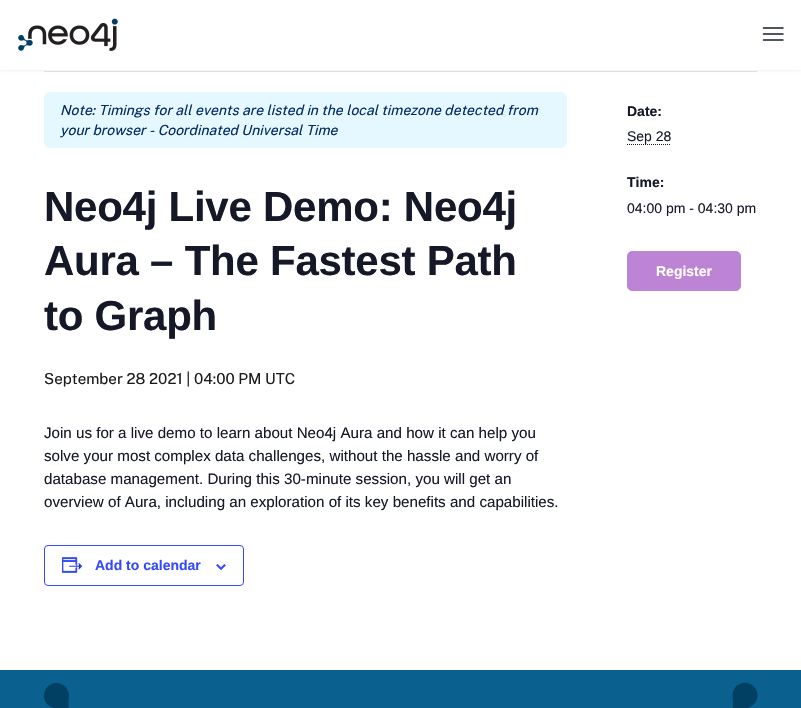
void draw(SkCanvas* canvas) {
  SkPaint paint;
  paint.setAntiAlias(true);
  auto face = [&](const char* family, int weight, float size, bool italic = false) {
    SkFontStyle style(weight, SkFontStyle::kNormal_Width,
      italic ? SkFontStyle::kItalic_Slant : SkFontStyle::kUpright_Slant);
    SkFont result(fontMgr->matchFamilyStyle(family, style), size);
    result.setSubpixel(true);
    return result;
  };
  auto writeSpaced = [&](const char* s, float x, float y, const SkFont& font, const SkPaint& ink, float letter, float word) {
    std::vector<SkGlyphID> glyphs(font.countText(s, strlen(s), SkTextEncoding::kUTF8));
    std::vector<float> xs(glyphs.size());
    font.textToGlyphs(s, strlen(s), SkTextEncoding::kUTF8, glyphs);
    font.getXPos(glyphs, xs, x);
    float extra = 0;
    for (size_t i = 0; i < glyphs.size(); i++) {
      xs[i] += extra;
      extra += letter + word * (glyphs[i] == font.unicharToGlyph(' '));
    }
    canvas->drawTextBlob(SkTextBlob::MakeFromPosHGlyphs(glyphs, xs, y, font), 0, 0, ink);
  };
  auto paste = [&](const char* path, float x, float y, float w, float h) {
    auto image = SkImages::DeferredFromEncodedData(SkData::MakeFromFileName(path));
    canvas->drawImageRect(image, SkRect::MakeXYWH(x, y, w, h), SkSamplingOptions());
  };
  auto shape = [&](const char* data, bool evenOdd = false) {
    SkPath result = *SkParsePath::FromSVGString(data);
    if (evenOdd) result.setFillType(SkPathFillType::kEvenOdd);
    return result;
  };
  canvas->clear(0xffffffff);
  paint.setColor(0xffe4e4e4);
  canvas->drawRect(SkRect::MakeXYWH(44, 71, 713, 1), paint);
  paint.setColor(0x0d000000);
  paint.setMaskFilter(SkMaskFilter::MakeBlur(kNormal_SkBlurStyle, 1));
  canvas->drawRect(SkRect::MakeXYWH(0, 1, 801, 70), paint);
  paint.setMaskFilter(nullptr);
  paint.setColor(0xffffffff);
  canvas->drawRect(SkRect::MakeXYWH(0, 0, 801, 70), paint);
  paste("img/1.png", 18, 18, 100, 33);
  paint.setStroke(true);
  paint.setStrokeWidth(1.5f);
  paint.setStrokeCap(SkPaint::kRound_Cap);
  paint.setStrokeJoin(SkPaint::kRound_Join);
  paint.setColor(0xff151e29);
  canvas->drawPath(shape("M763.5 40H783M763.5 34H783M763.5 28H783"), paint);
  paint.setStroke(false);
  paint.setColor(0xffe6f8ff);
  canvas->drawRoundRect(SkRect::MakeXYWH(44, 92, 523, 56), 6, 6, paint);
  paint.setStroke(true);
  paint.setStrokeWidth(1);
  paint.setStrokeCap(SkPaint::kButt_Cap);
  paint.setStrokeJoin(SkPaint::kMiter_Join);
  paint.setColor(0xff334aff);
  canvas->drawRoundRect(SkRect::MakeXYWH(44.5f, 545.5f, 199, 40), 3.5f, 3.5f, paint);
  paste("img/2.png", 62, 557, 21, 16);
  paste("img/3.png", 216, 564, 10, 6);
  paint.setColor(0xff151e29);
  paint.setPathEffect(SkDashPathEffect::Make({{1, 1}}, 0));
  canvas->drawPath(shape("M627 144.5H671"), paint);
  paint.setPathEffect(nullptr);
  paint.setStroke(false);
  paint.setColor(0xffbd83d4);
  canvas->drawRoundRect(SkRect::MakeXYWH(627.5f, 251.5f, 113, 39), 4.5f, 4.5f, paint);
  paint.setStroke(true);
  canvas->drawRoundRect(SkRect::MakeXYWH(627.5f, 251.5f, 113, 39), 4.5f, 4.5f, paint);
  paint.setStroke(false);
  paint.setColor(0xff0a6190);
  canvas->drawRect(SkRect::MakeXYWH(0, 670, 801, 38), paint);
  paste("img/4.png", 43, 683, 26, 25);
  paste("img/5.png", 732, 682, 26, 26);
  auto f0 = face("Public Sans", 400, 14, true);
  paint.setColor(0xff002b66);
  canvas->drawString("Note: Timings for all events are listed in the local timezone detected from", 60, 115, f0, paint);
  canvas->drawString("your browser - Coordinated Universal Time", 60, 135, f0, paint);
  auto f1 = face("Liberation Sans", 700, 42);
  paint.setColor(0xff141827);
  {
    const struct { const char* s; float x, y; } items[] = {
      {"Neo4j Live Demo: Neo4j", 44, 221},
      {"Aura – The Fastest Path", 44, 275},
      {"to Graph", 44, 330},
    };
    for (auto [s, x, y] : items) {
      writeSpaced(s, x, y, f1, paint, -0.25f, 0);
    }
  }
  auto f2 = face("Public Sans", 400, 15.15f);
  paint.setColor(0xff1a1b1d);
  canvas->drawString("September 28 2021 | 04:00 PM UTC", 44, 384, f2, paint);
  auto f3 = face("Liberation Sans", 400, 15.15f);
  paint.setColor(0xff141827);
  {
    const struct { const char* s; float x, y; } items[] = {
      {"Join us for a live demo to learn about Neo4j Aura and how it can help you", 44, 438},
      {"solve your most complex data challenges, without the hassle and worry of", 44, 461},
      {"database management. During this 30-minute session, you will get an", 44, 484},
      {"overview of Aura, including an exploration of its key benefits and capabilities.", 44, 507},
    };
    for (auto [s, x, y] : items) {
      canvas->drawString(s, x, y, f3, paint);
    }
  }
  auto f4 = face("Liberation Sans", 700, 14);
  paint.setColor(0xff334aff);
  canvas->drawString("Add to calendar", 95, 570, f4, paint);
  paint.setColor(0xff141827);
  canvas->drawString("Date:", 627, 116, f4, paint);
  auto f5 = face("Liberation Sans", 400, 14);
  canvas->drawString("Sep 28", 627, 141, f5, paint);
  canvas->drawString("Time:", 627, 187, f4, paint);
  canvas->drawString("04:00 pm - 04:30 pm", 627, 213, f5, paint);
  paint.setColor(0xffffffff);
  canvas->drawString("Register", 656, 276, f4, paint);
}
